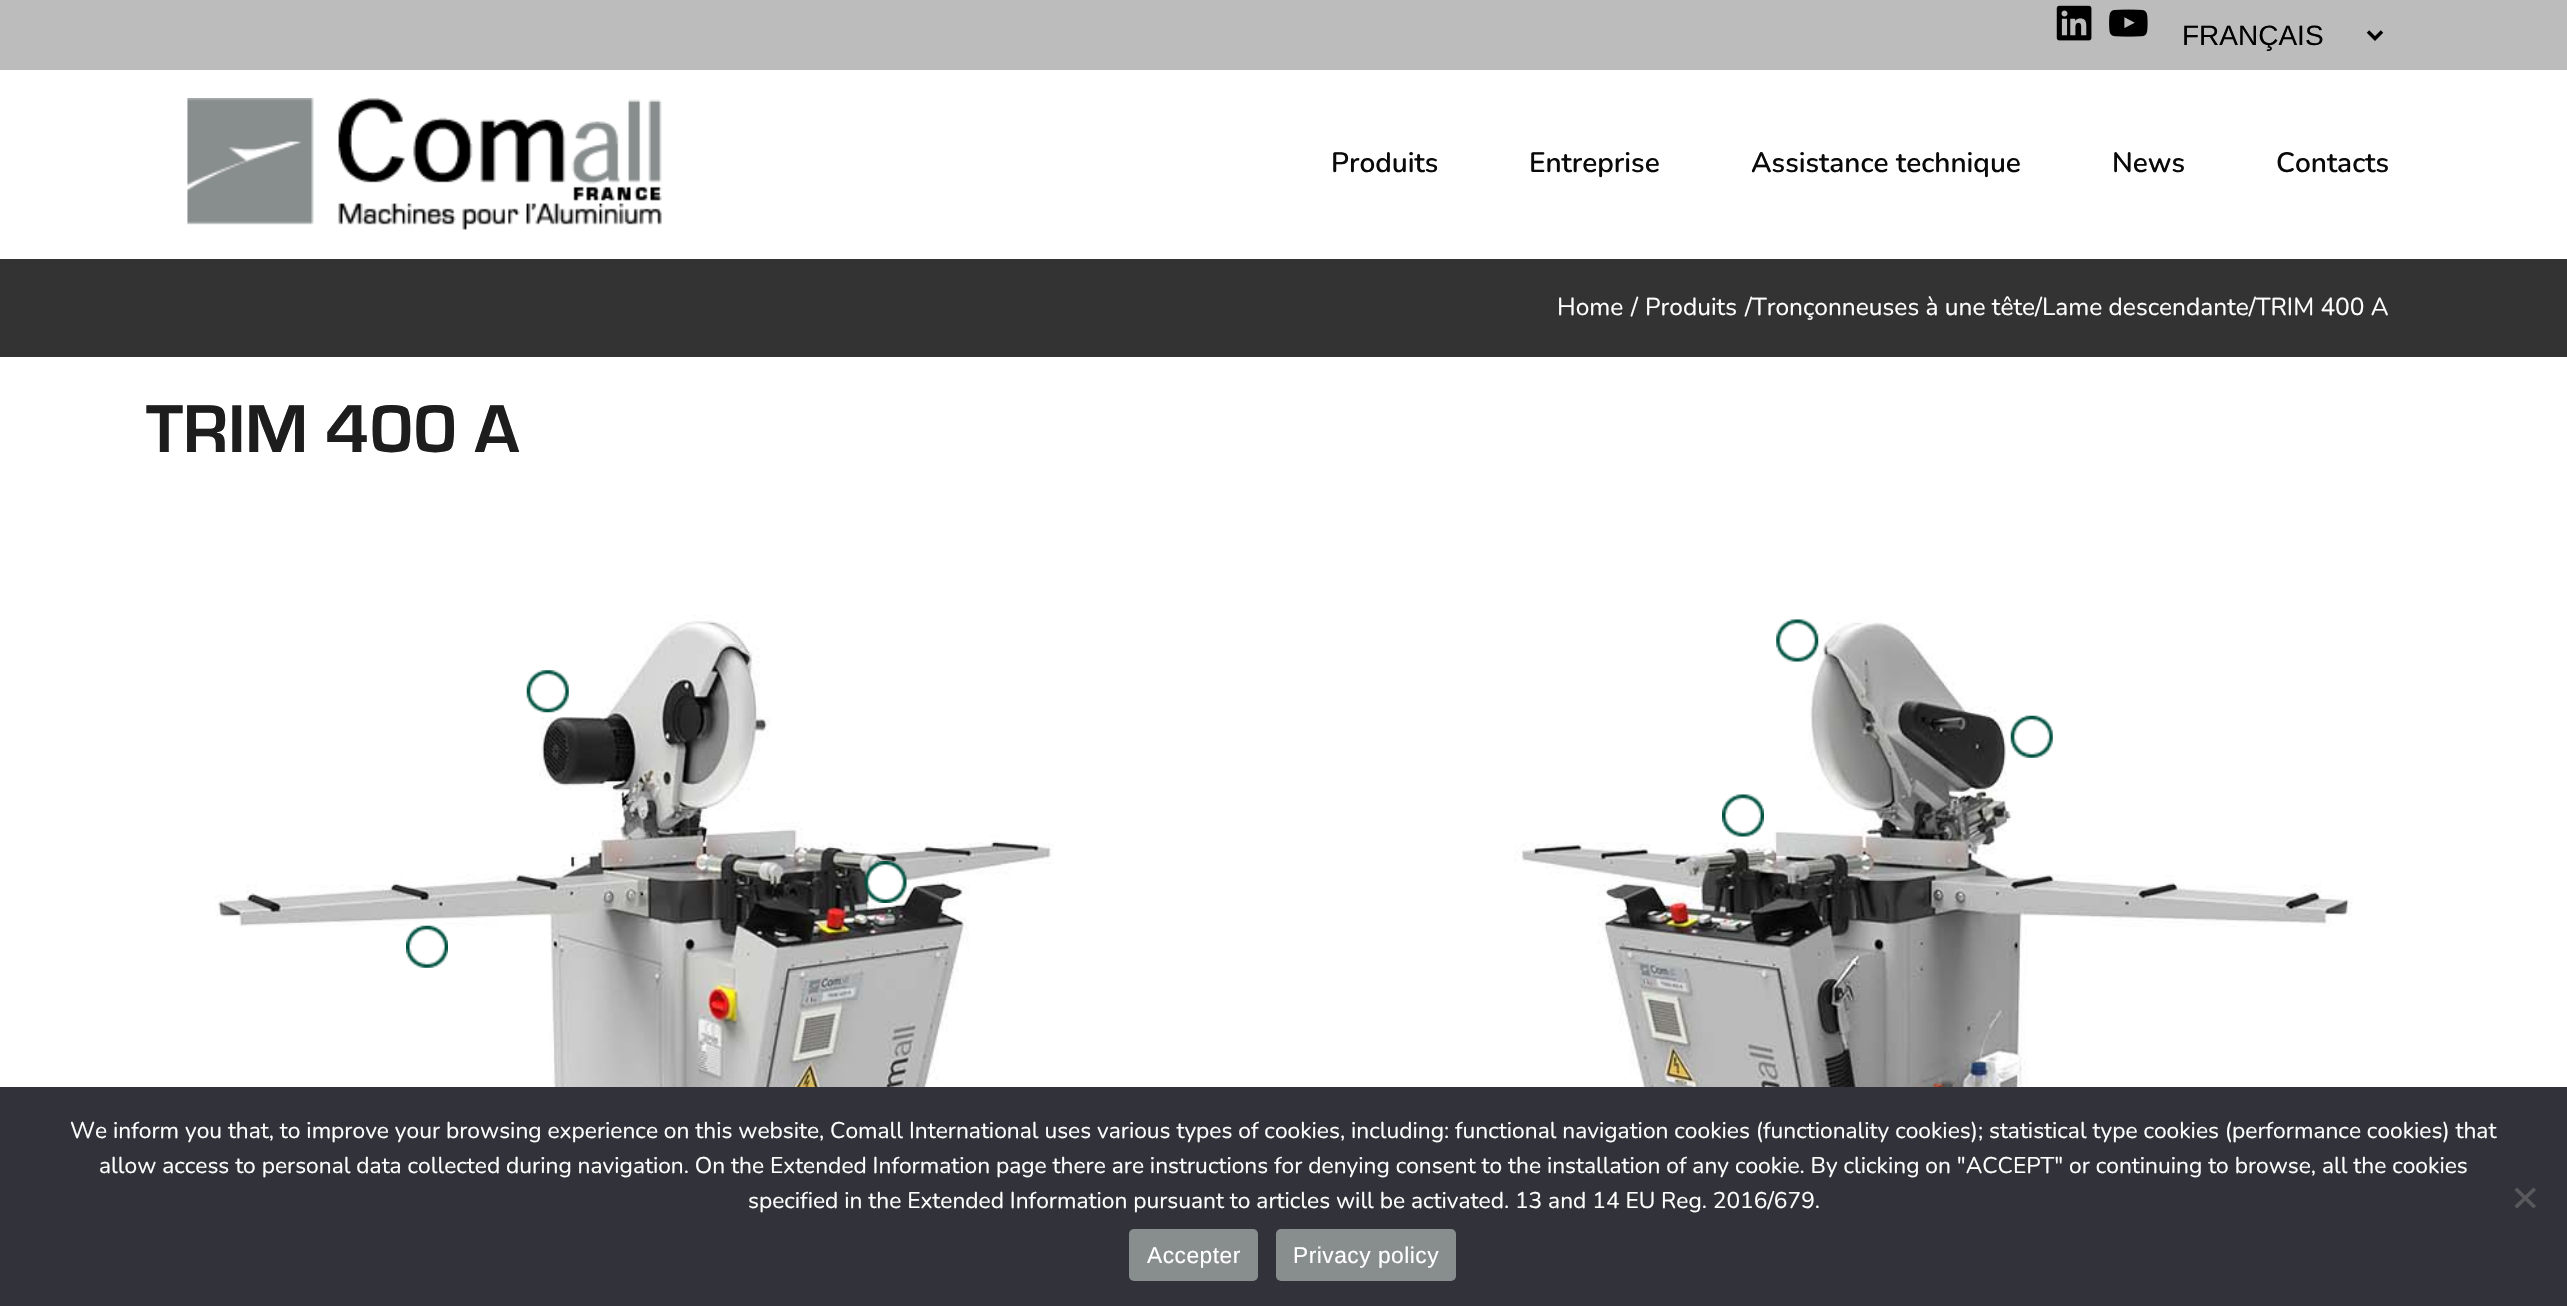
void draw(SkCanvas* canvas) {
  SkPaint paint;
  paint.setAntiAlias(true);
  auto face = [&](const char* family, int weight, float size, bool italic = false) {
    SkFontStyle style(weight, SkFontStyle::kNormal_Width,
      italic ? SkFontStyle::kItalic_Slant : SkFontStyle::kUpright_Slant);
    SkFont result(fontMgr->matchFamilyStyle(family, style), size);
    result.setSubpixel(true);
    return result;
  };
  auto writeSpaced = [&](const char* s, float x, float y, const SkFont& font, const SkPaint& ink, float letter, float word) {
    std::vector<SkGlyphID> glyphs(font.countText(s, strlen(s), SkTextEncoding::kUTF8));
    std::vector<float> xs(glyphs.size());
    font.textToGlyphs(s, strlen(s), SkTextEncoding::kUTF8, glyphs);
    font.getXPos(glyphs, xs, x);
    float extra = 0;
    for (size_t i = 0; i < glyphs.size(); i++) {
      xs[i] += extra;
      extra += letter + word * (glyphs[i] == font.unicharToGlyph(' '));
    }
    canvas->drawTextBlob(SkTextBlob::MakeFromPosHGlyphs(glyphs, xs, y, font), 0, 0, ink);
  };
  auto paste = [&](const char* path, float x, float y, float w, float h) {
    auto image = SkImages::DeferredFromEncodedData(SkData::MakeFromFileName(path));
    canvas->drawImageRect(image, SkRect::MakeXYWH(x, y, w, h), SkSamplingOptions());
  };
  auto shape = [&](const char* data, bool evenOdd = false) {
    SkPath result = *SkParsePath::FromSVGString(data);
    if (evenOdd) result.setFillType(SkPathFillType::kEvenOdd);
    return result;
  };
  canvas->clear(0xffffffff);
  paint.setColor(0xffbdbcbc);
  canvas->drawRect(SkRect::MakeXYWH(0, 0, 2567, 70), paint);
  paste("img/1.png", 2056, 5, 36, 36);
  paste("img/2.png", 2109, 9, 39, 28);
  paint.setStroke(true);
  paint.setStrokeWidth(3.5f);
  paint.setColor(0xff000000);
  canvas->drawPath(shape("M2368 31.5L2375 38.5L2382 31.5"), paint);
  paste("img/3.png", 187, 98, 475, 132);
  paint.setStroke(false);
  paint.setColor(0xff333333);
  canvas->drawRect(SkRect::MakeXYWH(0, 259, 2567, 98), paint);
  paste("img/4.png", 215, 615, 2138, 472);
  paste("img/5.png", 1776, 619, 43, 43);
  paste("img/6.png", 526, 670, 43, 43);
  paste("img/7.png", 2010, 715, 43, 43);
  paste("img/8.png", 1722, 794, 42, 43);
  paste("img/9.png", 864, 861, 43, 42);
  paste("img/10.png", 406, 925, 42, 43);
  paint.setColor(0xff32323a);
  canvas->drawRect(SkRect::MakeXYWH(0, 1087, 2567, 219), paint);
  paint.setColor(0xff59595d);
  canvas->drawPath(shape("M2533.5 1187.5L2536 1190L2517 1208.5L2514.5 1206Z"), paint);
  canvas->drawPath(shape("M2514.5 1190L2517 1187.5L2536 1206L2533.5 1208.5Z"), paint);
  paint.setColor(0xff888d8d);
  canvas->drawRoundRect(SkRect::MakeXYWH(1129, 1229, 129, 52), 5, 5, paint);
  canvas->drawRoundRect(SkRect::MakeXYWH(1276, 1229, 180, 52), 5, 5, paint);
  auto f0 = face("Liberation Sans", 400, 28);
  paint.setColor(0xff000000);
  canvas->drawString("FRANÇAIS", 2182, 45, f0, paint);
  auto f1 = face("Nunito", 600, 28);
  paint.setColor(0xff0a0a0a);
  {
    const struct { const char* s; float x, y; } items[] = {
      {"Produits", 1331, 172},
      {"Entreprise", 1529, 172},
      {"Assistance technique", 1751, 172},
      {"News", 2112, 172},
      {"Contacts", 2276, 172},
    };
    for (auto [s, x, y] : items) {
      canvas->drawString(s, x, y, f1, paint);
    }
  }
  auto f2 = face("Nunito", 400, 24.5f);
  paint.setColor(0xffffffff);
  {
    const struct { const char* s; float x, y; } items[] = {
      {"Home", 1557, 315},
      {"/", 1631, 315},
      {"Produits", 1645, 315},
      {"/Tronçonneuses à une tête/Lame descendante/TRIM 400 A", 1745, 315},
    };
    for (auto [s, x, y] : items) {
      canvas->drawString(s, x, y, f2, paint);
    }
  }
  auto f3 = face("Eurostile", 700, 70);
  paint.setColor(0xff1d1d1d);
  canvas->drawString("TRIM 400 A", 146, 452, f3, paint);
  auto f4 = face("Nunito", 400, 22.75f);
  paint.setColor(0xffffffff);
  {
    const struct { const char* s; float x, y; } items[] = {
      {"We inform you that, to improve your browsing experience on this website, Comall International uses various types of cookies, including: functional navigation cookies (functionality cookies); statistical type cookies (performance cookies) that", 70, 1138},
      {"allow access to personal data collected during navigation. On the Extended Information page there are instructions for denying consent to the installation of any cookie. By clicking on \"ACCEPT\" or continuing to browse, all the cookies", 99, 1173},
      {"specified in the Extended Information pursuant to articles will be activated. 13 and 14 EU Reg. 2016/679.", 748, 1208},
    };
    for (auto [s, x, y] : items) {
      canvas->drawString(s, x, y, f4, paint);
    }
  }
  auto f5 = face("Liberation Sans", 400, 22.75f);
  writeSpaced("Accepter", 1147, 1263, f5, paint, 0.5f, 0);
  writeSpaced("Privacy policy", 1293, 1263, f5, paint, 0.5f, 0);
}
